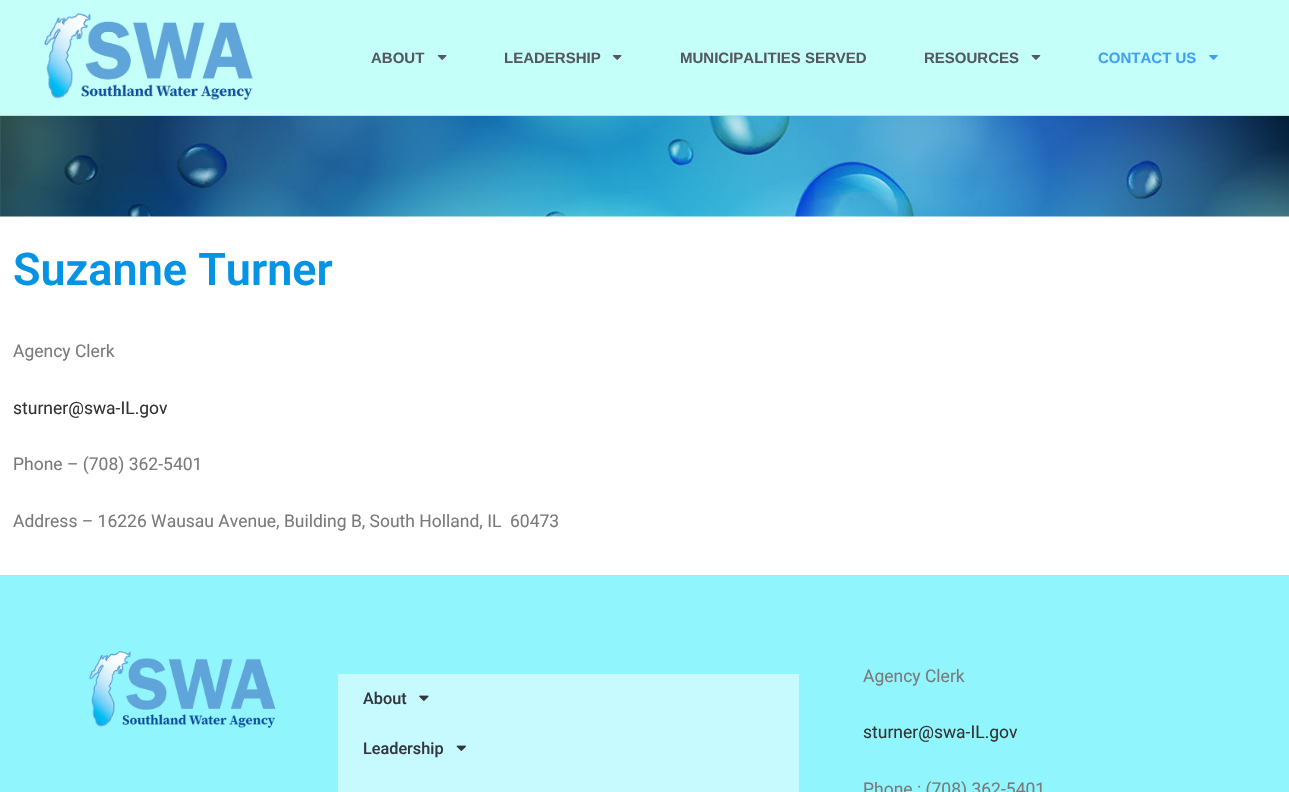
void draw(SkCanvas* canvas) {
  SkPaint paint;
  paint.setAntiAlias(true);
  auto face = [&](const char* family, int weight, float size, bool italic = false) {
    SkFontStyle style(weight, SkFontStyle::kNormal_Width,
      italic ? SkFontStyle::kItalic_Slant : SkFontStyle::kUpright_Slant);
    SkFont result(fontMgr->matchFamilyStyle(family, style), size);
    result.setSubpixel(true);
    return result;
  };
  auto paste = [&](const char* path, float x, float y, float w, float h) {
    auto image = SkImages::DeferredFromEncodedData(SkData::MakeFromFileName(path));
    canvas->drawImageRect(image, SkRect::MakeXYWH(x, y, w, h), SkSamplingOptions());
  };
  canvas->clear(0xffffffff);
  paint.setColor(0xffc4fff9);
  canvas->drawRect(SkRect::MakeXYWH(0, 0, 1289, 115), paint);
  paint.setColor(0xffd3d3d3);
  canvas->drawRect(SkRect::MakeXYWH(0, 115, 1289, 1), paint);
  paste("img/1.png", 44, 13, 209, 87);
  paste("img/2.png", 437, 55, 10, 5);
  paste("img/2.png", 612, 55, 10, 5);
  paste("img/3.png", 1031, 55, 10, 5);
  paste("img/4.png", 1209, 55, 9, 5);
  paste("img/5.png", 0, 116, 1289, 101);
  paint.setColor(0xff91f5fe);
  canvas->drawRect(SkRect::MakeXYWH(0, 575, 1289, 217), paint);
  paste("img/6.png", 89, 651, 187, 77);
  paint.setColor(0xffc6fafe);
  canvas->drawRect(SkRect::MakeXYWH(338, 674, 461, 118), paint);
  paste("img/7.png", 419, 695, 10, 6);
  paste("img/8.png", 456, 745, 10, 6);
  auto f0 = face("Liberation Sans", 700, 15);
  paint.setColor(0xff54595f);
  {
    const struct { const char* s; float x, y; } items[] = {
      {"ABOUT", 371, 63},
      {"LEADERSHIP", 504, 63},
      {"MUNICIPALITIES SERVED", 680, 63},
      {"RESOURCES", 924, 63},
    };
    for (auto [s, x, y] : items) {
      canvas->drawString(s, x, y, f0, paint);
    }
  }
  paint.setColor(0xff41a1ed);
  canvas->drawString("CONTACT US", 1098, 63, f0, paint);
  auto f1 = face("Roboto", 600, 45);
  paint.setColor(0xff0693e3);
  canvas->drawString("Suzanne Turner", 13, 285, f1, paint);
  auto f2 = face("Roboto", 400, 17.5f);
  paint.setColor(0xff7a7a7a);
  canvas->drawString("Agency Clerk", 13, 357, f2, paint);
  paint.setColor(0xff333333);
  canvas->drawString("sturner@swa-IL.gov", 13, 414, f2, paint);
  paint.setColor(0xff7a7a7a);
  canvas->drawString("Phone – (708) 362-5401", 13, 470, f2, paint);
  canvas->drawString("Address – 16226 Wausau Avenue, Building B, South Holland, IL  60473", 13, 527, f2, paint);
  auto f3 = face("Roboto", 500, 16.25f);
  paint.setColor(0xff33373d);
  canvas->drawString("About", 363, 704, f3, paint);
  canvas->drawString("Leadership", 363, 754, f3, paint);
  paint.setColor(0xff7a7a7a);
  canvas->drawString("Agency Clerk", 863, 682, f2, paint);
  paint.setColor(0xff333333);
  canvas->drawString("sturner@swa-IL.gov", 863, 738, f2, paint);
  paint.setColor(0xff7a7a7a);
  canvas->drawString("Phone : (708) 362-5401", 863, 795, f2, paint);
}
